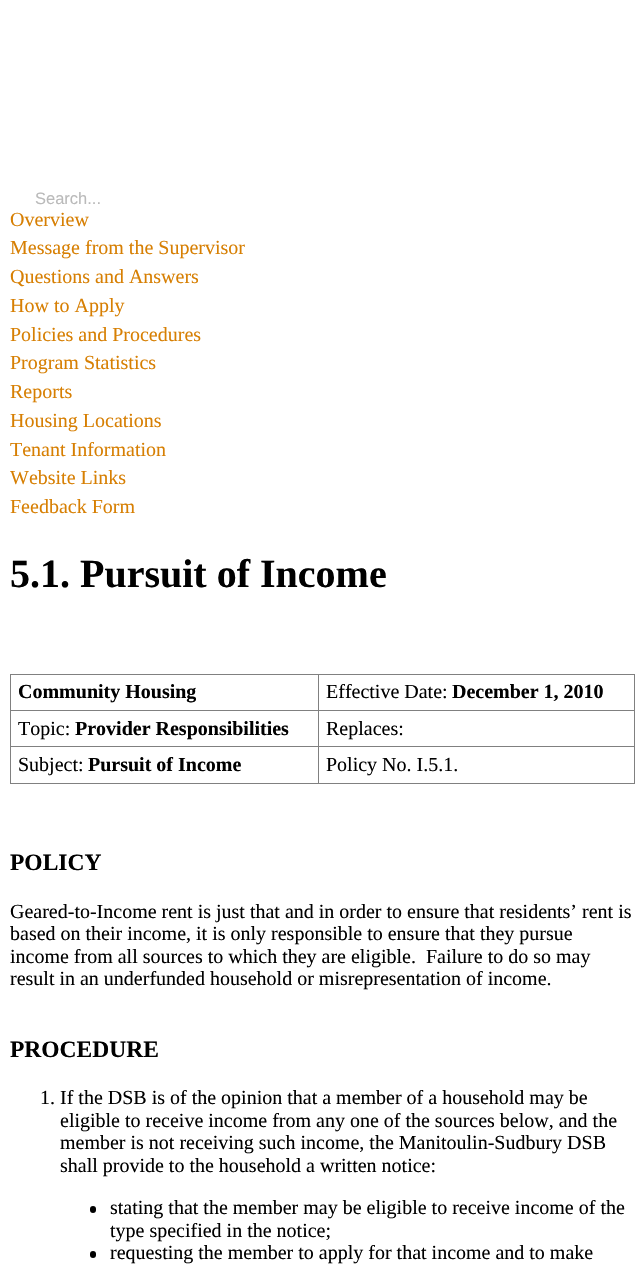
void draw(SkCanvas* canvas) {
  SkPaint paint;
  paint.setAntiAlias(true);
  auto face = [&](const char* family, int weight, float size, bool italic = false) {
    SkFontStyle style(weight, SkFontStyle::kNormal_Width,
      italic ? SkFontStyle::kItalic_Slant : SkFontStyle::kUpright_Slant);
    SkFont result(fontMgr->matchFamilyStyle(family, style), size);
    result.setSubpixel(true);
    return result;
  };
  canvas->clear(0xffffffff);
  {
    const struct { float x, y, w, h; SkColor color; } items[] = {
      {10, 674, 625, 1, 0xff808080},
      {634, 674, 1, 110, 0xff808080},
      {10, 783, 625, 1, 0xff808080},
      {10, 674, 1, 110, 0xff808080},
      {318, 710, 317, 1, 0xff808080},
      {318, 746, 317, 1, 0xff808080},
      {318, 746, 1, 38, 0xff808080},
      {10, 746, 309, 1, 0xff808080},
      {318, 710, 1, 38, 0xff808080},
      {10, 710, 309, 1, 0xff808080},
      {318, 674, 1, 37, 0xff808080},
    };
    for (auto [x, y, w, h, color] : items) {
      paint.setColor(color);
      canvas->drawRect(SkRect::MakeXYWH(x, y, w, h), paint);
    }
  }
  paint.setColor(0xff000000);
  canvas->drawRoundRect(SkRect::MakeXYWH(90, 1206, 6, 7), 3, 3, paint);
  canvas->drawRoundRect(SkRect::MakeXYWH(90, 1251, 6, 7), 3, 3, paint);
  auto f0 = face("Liberation Sans", 400, 16.5f);
  paint.setColor(0xffbababa);
  canvas->drawString("Search...", 35, 204, f0, paint);
  auto f1 = face("Liberation Serif", 400, 20);
  paint.setColor(0xffd77f03);
  {
    const struct { const char* s; float x, y; } items[] = {
      {"Overview", 10, 226},
      {"Message from the Supervisor", 10, 254},
      {"Questions and Answers", 10, 283},
      {"How to Apply", 10, 312},
      {"Policies and Procedures", 10, 341},
      {"Program Statistics", 10, 369},
      {"Reports", 10, 398},
      {"Housing Locations", 10, 427},
      {"Tenant Information", 10, 456},
      {"Website Links", 10, 484},
      {"Feedback Form", 10, 513},
    };
    for (auto [s, x, y] : items) {
      canvas->drawString(s, x, y, f1, paint);
    }
  }
  auto f2 = face("Liberation Serif", 700, 40);
  paint.setColor(0xff000000);
  canvas->drawString("5.1. Pursuit of Income", 10, 587, f2, paint);
  auto f3 = face("Liberation Serif", 700, 20);
  canvas->drawString("Community Housing", 18, 698, f3, paint);
  canvas->drawString("Effective Date:", 326, 698, f1, paint);
  canvas->drawString("December 1, 2010", 452, 698, f3, paint);
  canvas->drawString("Topic:", 18, 735, f1, paint);
  canvas->drawString("Provider Responsibilities", 75, 735, f3, paint);
  canvas->drawString("Replaces:", 326, 735, f1, paint);
  canvas->drawString("Subject:", 18, 771, f1, paint);
  canvas->drawString("Pursuit of Income", 88, 771, f3, paint);
  canvas->drawString("Policy No. I.5.1.", 326, 771, f1, paint);
  auto f4 = face("Liberation Serif", 700, 23.5f);
  canvas->drawString("POLICY", 10, 870, f4, paint);
  {
    const struct { const char* s; float x, y; } items[] = {
      {"Geared-to-Income rent is just that and in order to ensure that residents’ rent is", 10, 918},
      {"based on their income, it is only responsible to ensure that they pursue", 10, 940},
      {"income from all sources to which they are eligible.  Failure to do so may", 10, 963},
      {"result in an underfunded household or misrepresentation of income.", 10, 985},
    };
    for (auto [s, x, y] : items) {
      canvas->drawString(s, x, y, f1, paint);
    }
  }
  canvas->drawString("PROCEDURE", 10, 1057, f4, paint);
  {
    const struct { const char* s; float x, y; } items[] = {
      {"1. If the DSB is of the opinion that a member of a household may be", 40, 1104},
      {"eligible to receive income from any one of the sources below, and the", 60, 1127},
      {"member is not receiving such income, the Manitoulin-Sudbury DSB", 60, 1149},
      {"shall provide to the household a written notice:", 60, 1172},
      {"stating that the member may be eligible to receive income of the", 110, 1214},
      {"type specified in the notice;", 110, 1237},
      {"requesting the member to apply for that income and to make", 110, 1259},
    };
    for (auto [s, x, y] : items) {
      canvas->drawString(s, x, y, f1, paint);
    }
  }
}
